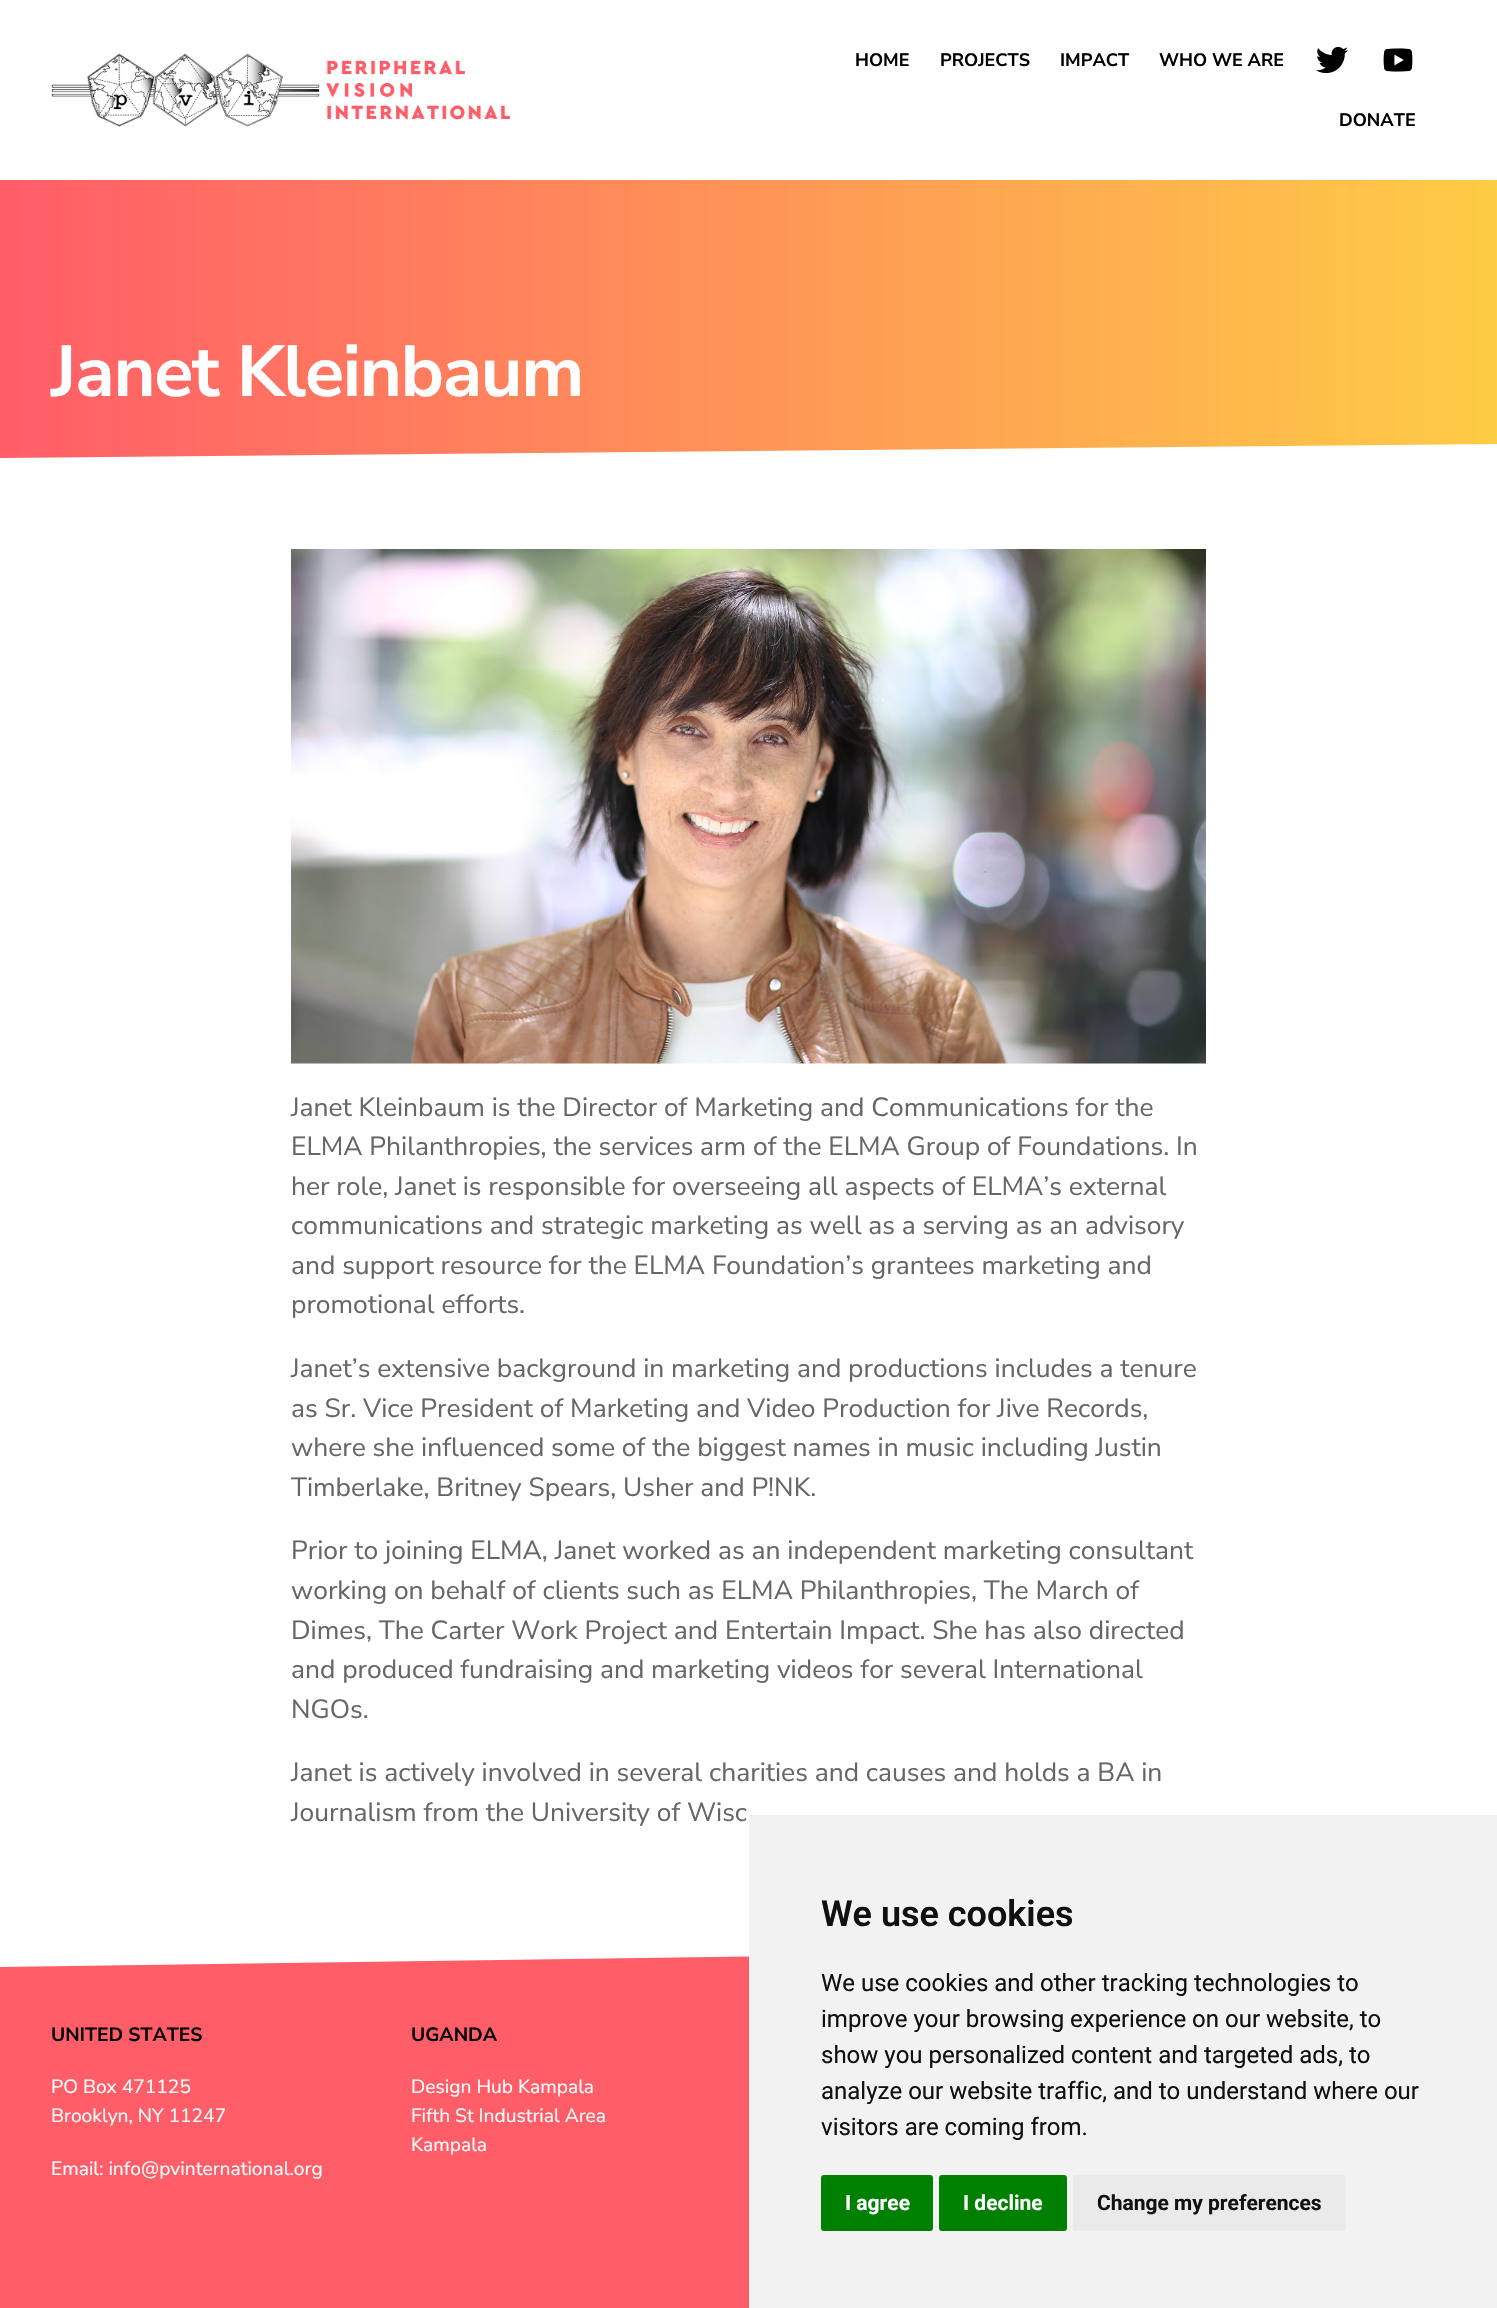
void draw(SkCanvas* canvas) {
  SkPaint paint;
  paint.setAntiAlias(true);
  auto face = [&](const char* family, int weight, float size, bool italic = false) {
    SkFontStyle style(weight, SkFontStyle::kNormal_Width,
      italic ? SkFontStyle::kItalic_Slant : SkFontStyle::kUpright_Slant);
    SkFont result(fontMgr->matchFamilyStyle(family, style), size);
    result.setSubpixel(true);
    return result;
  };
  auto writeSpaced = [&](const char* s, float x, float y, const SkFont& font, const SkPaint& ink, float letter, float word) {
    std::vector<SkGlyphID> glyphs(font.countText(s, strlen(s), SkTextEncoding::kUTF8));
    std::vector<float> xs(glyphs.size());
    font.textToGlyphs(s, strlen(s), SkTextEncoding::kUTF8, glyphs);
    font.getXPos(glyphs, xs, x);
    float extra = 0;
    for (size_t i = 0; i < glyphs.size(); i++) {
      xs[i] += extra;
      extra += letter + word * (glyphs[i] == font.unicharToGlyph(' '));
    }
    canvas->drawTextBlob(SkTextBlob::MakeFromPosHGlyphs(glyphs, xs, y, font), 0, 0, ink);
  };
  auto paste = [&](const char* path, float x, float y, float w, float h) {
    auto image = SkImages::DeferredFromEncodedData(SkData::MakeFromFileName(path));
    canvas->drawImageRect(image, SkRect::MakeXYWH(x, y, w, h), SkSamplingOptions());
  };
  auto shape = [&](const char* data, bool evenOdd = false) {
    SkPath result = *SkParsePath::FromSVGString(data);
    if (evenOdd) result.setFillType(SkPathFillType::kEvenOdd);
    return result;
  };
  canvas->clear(0xffffffff);
  paste("img/1.png", 51, 53, 459, 74);
  paste("img/2.png", 1316, 46, 32, 28);
  paste("img/3.png", 1383, 48, 30, 24);
  {
    const SkColor colors[] = {0xffff5d68, 0xfffecc45};
    const float stops[] = {0, 1};
    const SkPoint ends[] = {{0, 320}, {1497, 319}};
    paint.setShader(SkGradientShader::MakeLinear(ends, colors, stops, 2, SkTileMode::kClamp));
    paint.setAlpha(255);
  }
  canvas->drawPath(shape("M0 180V458L1497 444V180Z"), paint);
  paste("img/4.png", 291, 549, 915, 515);
  paint.setShader(nullptr);
  paint.setColor(0xffff5d68);
  canvas->drawPath(shape("M0 1967V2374H1497V1946Z"), paint);
  paint.setColor(0xfff2f2f2);
  canvas->drawRect(SkRect::MakeXYWH(749, 1815, 748, 493), paint);
  paint.setColor(0xff008000);
  canvas->drawRoundRect(SkRect::MakeXYWH(821, 2175, 112, 56), 3, 3, paint);
  canvas->drawRoundRect(SkRect::MakeXYWH(939, 2175, 128, 56), 3, 3, paint);
  paint.setColor(0xffeaeaea);
  canvas->drawRoundRect(SkRect::MakeXYWH(1073, 2175, 273, 56), 3, 3, paint);
  auto f0 = face("Nunito Sans", 700, 18);
  paint.setColor(0xff000000);
  {
    const struct { const char* s; float x, y; } items[] = {
      {"HOME", 855, 66},
      {"PROJECTS", 940, 66},
      {"IMPACT", 1060, 66},
      {"WHO WE ARE", 1159, 66},
      {"DONATE", 1339, 126},
    };
    for (auto [s, x, y] : items) {
      canvas->drawString(s, x, y, f0, paint);
    }
  }
  auto f1 = face("Nunito Sans", 700, 72);
  paint.setColor(0xffffffff);
  writeSpaced("Janet Kleinbaum", 51, 396, f1, paint, -1.25f, 0);
  auto f2 = face("Nunito Sans", 400, 26.4f);
  paint.setColor(0xff666666);
  {
    const struct { const char* s; float x, y; } items[] = {
      {"Janet Kleinbaum is the Director of Marketing and Communications for the", 291, 1116},
      {"ELMA Philanthropies, the services arm of the ELMA Group of Foundations. In", 291, 1155},
      {"her role, Janet is responsible for overseeing all aspects of ELMA’s external", 291, 1195},
      {"communications and strategic marketing as well as a serving as an advisory", 291, 1234},
      {"and support resource for the ELMA Foundation’s grantees marketing and", 291, 1274},
      {"promotional efforts.", 291, 1313},
      {"Janet’s extensive background in marketing and productions includes a tenure", 291, 1377},
      {"as Sr. Vice President of Marketing and Video Production for Jive Records,", 291, 1417},
      {"where she influenced some of the biggest names in music including Justin", 291, 1456},
      {"Timberlake, Britney Spears, Usher and P!NK.", 291, 1496},
      {"Prior to joining ELMA, Janet worked as an independent marketing consultant", 291, 1559},
      {"working on behalf of clients such as ELMA Philanthropies, The March of", 291, 1599},
      {"Dimes, The Carter Work Project and Entertain Impact. She has also directed", 291, 1639},
      {"and produced fundraising and marketing videos for several International", 291, 1678},
      {"NGOs.", 291, 1718},
      {"Janet is actively involved in several charities and causes and holds a BA in", 291, 1781},
      {"Journalism from the University of Wisc", 291, 1821},
    };
    for (auto [s, x, y] : items) {
      canvas->drawString(s, x, y, f2, paint);
    }
  }
  auto f3 = face("Nunito Sans", 700, 19.25f);
  paint.setColor(0xff000000);
  canvas->drawString("UNITED STATES", 51, 2041, f3, paint);
  auto f4 = face("Nunito Sans", 400, 19.25f);
  paint.setColor(0xffffffff);
  {
    const struct { const char* s; float x, y; } items[] = {
      {"PO Box 471125", 51, 2093},
      {"Brooklyn, NY 11247", 51, 2122},
      {"Email: info@pvinternational.org", 51, 2175},
    };
    for (auto [s, x, y] : items) {
      canvas->drawString(s, x, y, f4, paint);
    }
  }
  paint.setColor(0xff000000);
  canvas->drawString("UGANDA", 411, 2041, f3, paint);
  paint.setColor(0xffffffff);
  {
    const struct { const char* s; float x, y; } items[] = {
      {"Design Hub Kampala", 411, 2093},
      {"Fifth St Industrial Area", 411, 2122},
      {"Kampala", 411, 2151},
    };
    for (auto [s, x, y] : items) {
      canvas->drawString(s, x, y, f4, paint);
    }
  }
  auto f5 = face("Roboto", 600, 36);
  paint.setColor(0xff111111);
  canvas->drawString("We use cookies", 821, 1926, f5, paint);
  auto f6 = face("Roboto", 400, 24);
  {
    const struct { const char* s; float x, y; } items[] = {
      {"We use cookies and other tracking technologies to", 821, 1991},
      {"improve your browsing experience on our website, to", 821, 2027},
      {"show you personalized content and targeted ads, to", 821, 2063},
      {"analyze our website traffic, and to understand where our", 821, 2099},
      {"visitors are coming from.", 821, 2135},
    };
    for (auto [s, x, y] : items) {
      canvas->drawString(s, x, y, f6, paint);
    }
  }
  auto f7 = face("Roboto", 700, 21);
  paint.setColor(0xffffffff);
  canvas->drawString("I agree", 845, 2210, f7, paint);
  canvas->drawString("I decline", 963, 2210, f7, paint);
  paint.setColor(0xff111111);
  canvas->drawString("Change my preferences", 1097, 2210, f7, paint);
}
